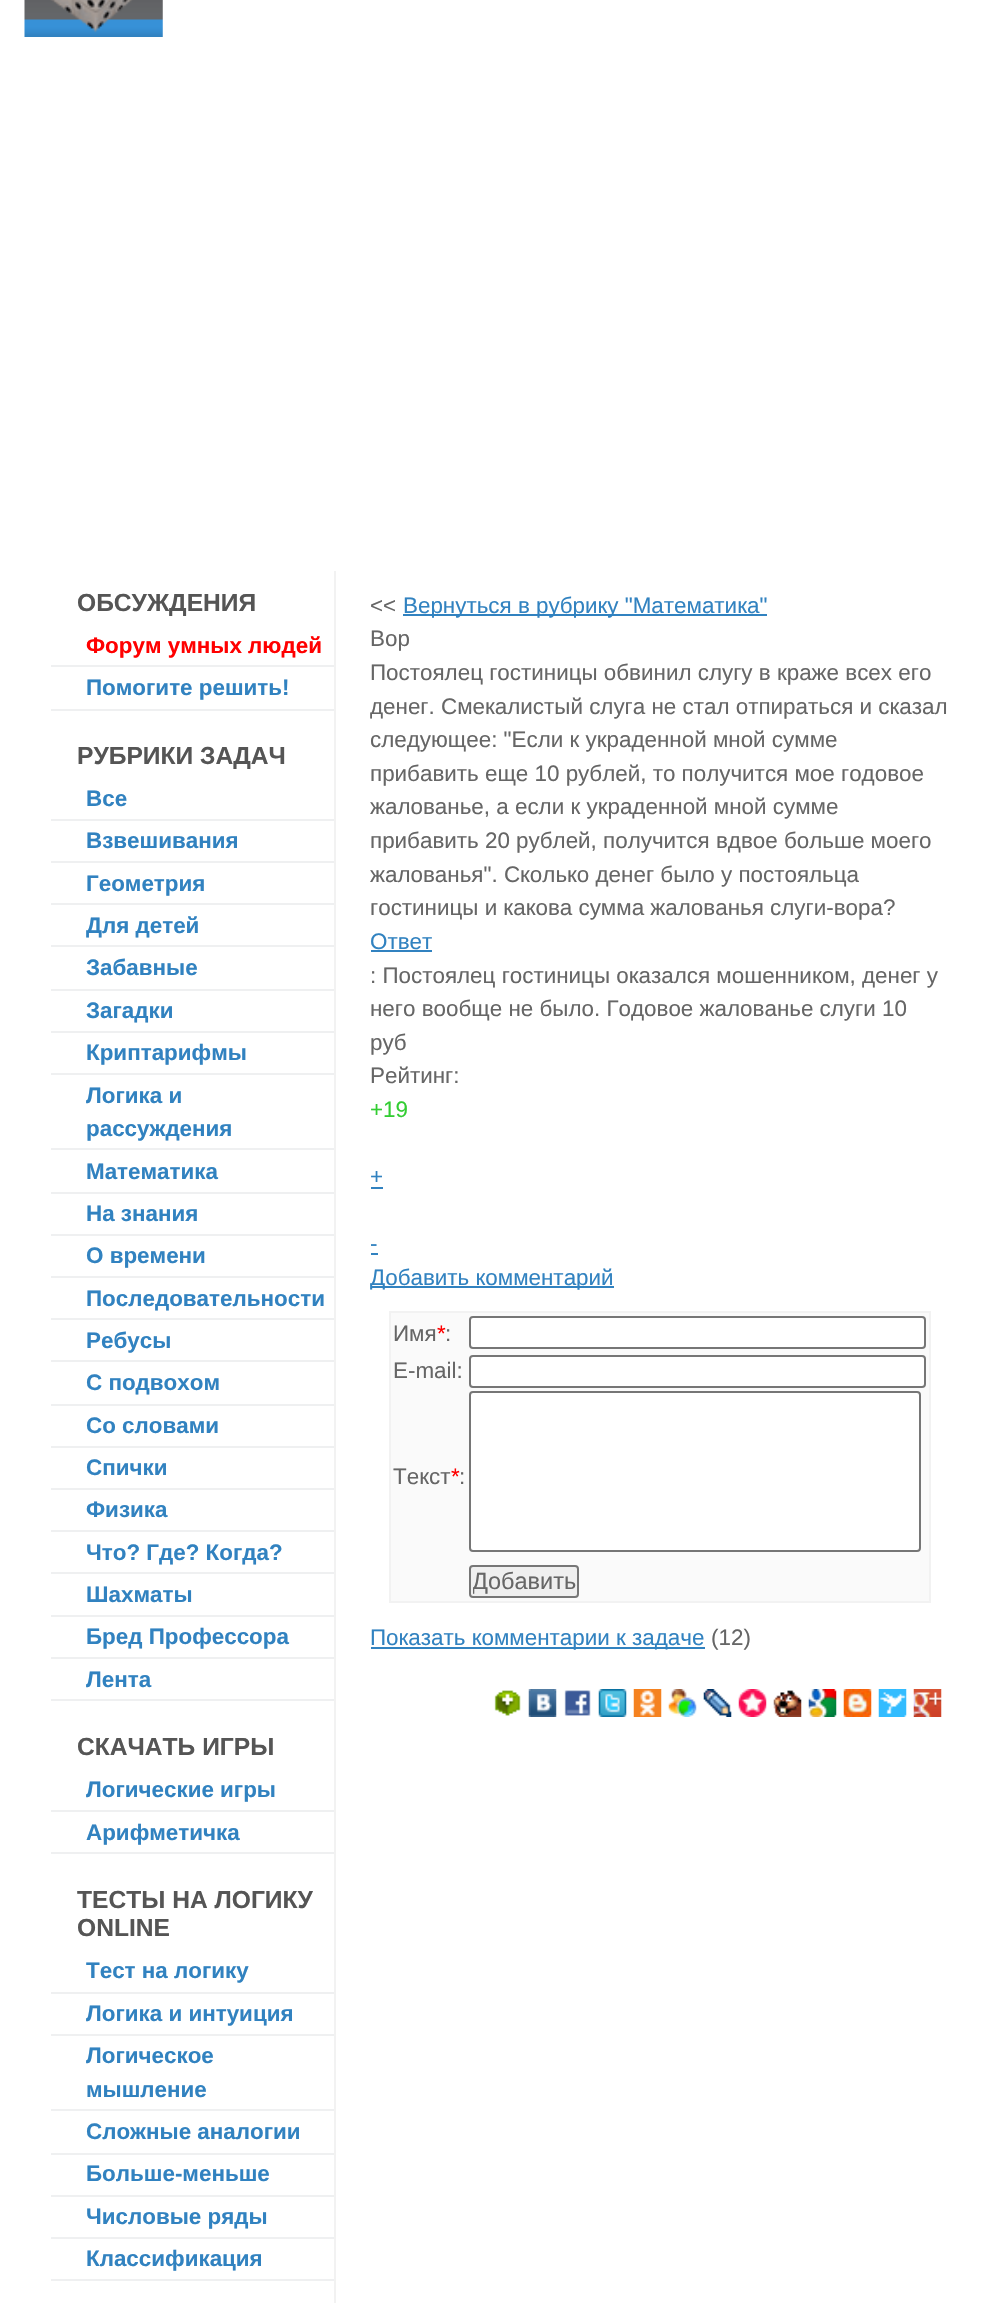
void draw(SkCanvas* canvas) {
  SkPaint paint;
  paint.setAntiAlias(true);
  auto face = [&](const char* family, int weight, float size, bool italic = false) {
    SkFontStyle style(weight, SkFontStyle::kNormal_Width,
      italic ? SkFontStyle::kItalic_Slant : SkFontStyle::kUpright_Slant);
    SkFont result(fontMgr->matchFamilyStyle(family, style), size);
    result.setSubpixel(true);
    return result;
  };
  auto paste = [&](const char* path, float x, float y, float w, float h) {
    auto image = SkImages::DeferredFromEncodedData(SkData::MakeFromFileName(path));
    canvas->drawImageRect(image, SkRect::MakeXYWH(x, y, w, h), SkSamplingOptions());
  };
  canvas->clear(0xffffffff);
  paste("img/1.png", 24, 0, 139, 37);
  {
    const struct { float x, y, w, h; SkColor color; } items[] = {
      {51, 665, 283, 2, 0xffeff0f1},
      {51, 709, 283, 2, 0xffeff0f1},
      {51, 819, 283, 2, 0xffeff0f1},
      {51, 861, 283, 2, 0xffeff0f1},
      {51, 903, 283, 2, 0xffeff0f1},
      {51, 945, 283, 2, 0xffeff0f1},
      {51, 989, 283, 2, 0xffeff0f1},
      {51, 1031, 283, 2, 0xffeff0f1},
      {51, 1073, 283, 2, 0xffeff0f1},
      {51, 1148, 283, 2, 0xffeff0f1},
      {51, 1192, 283, 2, 0xffeff0f1},
      {51, 1234, 283, 2, 0xffeff0f1},
      {51, 1276, 283, 2, 0xffeff0f1},
      {51, 1318, 283, 2, 0xffeff0f1},
      {51, 1360, 283, 2, 0xffeff0f1},
      {51, 1404, 283, 2, 0xffeff0f1},
      {51, 1446, 283, 2, 0xffeff0f1},
      {51, 1488, 283, 2, 0xffeff0f1},
      {51, 1530, 283, 2, 0xffeff0f1},
      {51, 1572, 283, 2, 0xffeff0f1},
      {51, 1615, 283, 2, 0xffeff0f1},
      {51, 1657, 283, 2, 0xffeff0f1},
      {51, 1699, 283, 2, 0xffeff0f1},
      {51, 1810, 283, 2, 0xffeff0f1},
      {51, 1852, 283, 2, 0xffeff0f1},
      {51, 1992, 283, 2, 0xffeff0f1},
      {51, 2034, 283, 2, 0xffeff0f1},
      {51, 2109, 283, 2, 0xffeff0f1},
      {51, 2153, 283, 2, 0xffeff0f1},
      {51, 2195, 283, 2, 0xffeff0f1},
      {51, 2237, 283, 2, 0xffeff0f1},
      {51, 2279, 283, 2, 0xffeff0f1},
      {334, 571, 2, 1732, 0xfff2f2f2},
      {403, 614, 364, 2, 0xff3182c0},
      {371, 950, 61, 2, 0xff3182c0},
      {371, 1187, 12, 2, 0xff3182c0},
      {371, 1253, 7, 2, 0xff3182c0},
      {371, 1286, 243, 2, 0xff3182c0},
    };
    for (auto [x, y, w, h, color] : items) {
      paint.setColor(color);
      canvas->drawRect(SkRect::MakeXYWH(x, y, w, h), paint);
    }
  }
  paint.setColor(0xfffafafa);
  canvas->drawRect(SkRect::MakeXYWH(390, 1312, 540, 290), paint);
  paint.setStroke(true);
  paint.setStrokeWidth(2);
  paint.setColor(0xfff2f2f2);
  canvas->drawRect(SkRect::MakeXYWH(390, 1312, 540, 290), paint);
  paint.setStroke(false);
  paint.setColor(0xffffffff);
  canvas->drawRoundRect(SkRect::MakeXYWH(470, 1317, 455, 31), 3, 3, paint);
  paint.setStroke(true);
  paint.setColor(0xff767676);
  canvas->drawRoundRect(SkRect::MakeXYWH(470, 1317, 455, 31), 3, 3, paint);
  paint.setStroke(false);
  paint.setColor(0xffffffff);
  canvas->drawRoundRect(SkRect::MakeXYWH(470, 1356, 455, 31), 3, 3, paint);
  paint.setStroke(true);
  paint.setColor(0xff767676);
  canvas->drawRoundRect(SkRect::MakeXYWH(470, 1356, 455, 31), 3, 3, paint);
  paint.setStroke(false);
  paint.setColor(0xffffffff);
  canvas->drawRoundRect(SkRect::MakeXYWH(470, 1392, 450, 159), 3, 3, paint);
  paint.setStroke(true);
  paint.setColor(0xff767676);
  canvas->drawRoundRect(SkRect::MakeXYWH(470, 1392, 450, 159), 3, 3, paint);
  paint.setStroke(false);
  paint.setColor(0xffefefef);
  canvas->drawRoundRect(SkRect::MakeXYWH(470, 1566, 108, 31), 3, 3, paint);
  paint.setStroke(true);
  paint.setColor(0xff767676);
  canvas->drawRoundRect(SkRect::MakeXYWH(470, 1566, 108, 31), 3, 3, paint);
  paint.setStroke(false);
  paint.setColor(0xff3182c0);
  canvas->drawRect(SkRect::MakeXYWH(371, 1647, 334, 2), paint);
  paste("img/2.png", 494, 1690, 27, 26);
  paste("img/3.png", 528, 1689, 29, 28);
  paste("img/4.png", 564, 1690, 27, 26);
  paste("img/5.png", 598, 1689, 29, 28);
  paste("img/6.png", 633, 1689, 29, 28);
  paste("img/7.png", 668, 1689, 29, 28);
  paste("img/8.png", 703, 1689, 29, 28);
  paste("img/9.png", 738, 1689, 29, 28);
  paste("img/10.png", 773, 1690, 29, 27);
  paste("img/11.png", 808, 1689, 29, 28);
  paste("img/12.png", 843, 1689, 29, 28);
  paste("img/13.png", 878, 1689, 29, 28);
  paste("img/14.png", 913, 1689, 29, 28);
  auto f0 = face("Liberation Sans", 700, 24.6f);
  paint.setColor(0xff555555);
  canvas->drawString("ОБСУЖДЕНИЯ", 77, 611, f0, paint);
  auto f1 = face("Liberation Sans", 700, 22.4f);
  paint.setColor(0xffff0000);
  canvas->drawString("Форум умных людей", 86, 653, f1, paint);
  paint.setColor(0xff3182c0);
  canvas->drawString("Помогите решить!", 86, 695, f1, paint);
  paint.setColor(0xff555555);
  canvas->drawString("РУБРИКИ ЗАДАЧ", 77, 764, f0, paint);
  paint.setColor(0xff3182c0);
  {
    const struct { const char* s; float x, y; } items[] = {
      {"Все", 86, 806},
      {"Взвешивания", 86, 848},
      {"Геометрия", 86, 891},
      {"Для детей", 86, 933},
      {"Забавные", 86, 975},
      {"Загадки", 86, 1018},
      {"Криптарифмы", 86, 1060},
      {"Логика и", 86, 1103},
      {"рассуждения", 86, 1136},
      {"Математика", 86, 1179},
      {"На знания", 86, 1221},
      {"О времени", 86, 1263},
      {"Последовательности", 86, 1306},
      {"Ребусы", 86, 1348},
      {"С подвохом", 86, 1390},
      {"Со словами", 86, 1433},
      {"Спички", 86, 1475},
      {"Физика", 86, 1517},
      {"Что? Где? Когда?", 86, 1560},
      {"Шахматы", 86, 1602},
      {"Бред Профессора", 86, 1644},
      {"Лента", 86, 1687},
    };
    for (auto [s, x, y] : items) {
      canvas->drawString(s, x, y, f1, paint);
    }
  }
  paint.setColor(0xff555555);
  canvas->drawString("СКАЧАТЬ ИГРЫ", 77, 1755, f0, paint);
  paint.setColor(0xff3182c0);
  canvas->drawString("Логические игры", 86, 1797, f1, paint);
  canvas->drawString("Арифметичка", 86, 1840, f1, paint);
  paint.setColor(0xff555555);
  canvas->drawString("ТЕСТЫ НА ЛОГИКУ", 77, 1908, f0, paint);
  canvas->drawString("ONLINE", 77, 1936, f0, paint);
  paint.setColor(0xff3182c0);
  {
    const struct { const char* s; float x, y; } items[] = {
      {"Тест на логику", 86, 1978},
      {"Логика и интуиция", 86, 2021},
      {"Логическое", 86, 2063},
      {"мышление", 86, 2097},
      {"Сложные аналогии", 86, 2139},
      {"Больше-меньше", 86, 2181},
      {"Числовые ряды", 86, 2224},
      {"Классификация", 86, 2266},
    };
    for (auto [s, x, y] : items) {
      canvas->drawString(s, x, y, f1, paint);
    }
  }
  auto f2 = face("Liberation Sans", 400, 22.4f);
  paint.setColor(0xff666666);
  canvas->drawString("<<", 370, 613, f2, paint);
  paint.setColor(0xff3182c0);
  canvas->drawString("Вернуться в рубрику \"Математика\"", 403, 613, f2, paint);
  paint.setColor(0xff666666);
  {
    const struct { const char* s; float x, y; } items[] = {
      {"Вор", 370, 646},
      {"Постоялец гостиницы обвинил слугу в краже всех его", 370, 680},
      {"денег. Смекалистый слуга не стал отпираться и сказал", 370, 714},
      {"следующее: \"Если к украденной мной сумме", 370, 747},
      {"прибавить еще 10 рублей, то получится мое годовое", 370, 781},
      {"жалованье, а если к украденной мной сумме", 370, 814},
      {"прибавить 20 рублей, получится вдвое больше моего", 370, 848},
      {"жалованья\". Сколько денег было у постояльца", 370, 882},
      {"гостиницы и какова сумма жалованья слуги-вора?", 370, 915},
    };
    for (auto [s, x, y] : items) {
      canvas->drawString(s, x, y, f2, paint);
    }
  }
  paint.setColor(0xff3182c0);
  canvas->drawString("Ответ", 370, 949, f2, paint);
  paint.setColor(0xff666666);
  {
    const struct { const char* s; float x, y; } items[] = {
      {": Постоялец гостиницы оказался мошенником, денег у", 370, 983},
      {"него вообще не было. Годовое жалованье слуги 10", 370, 1016},
      {"руб", 370, 1050},
      {"Рейтинг:", 370, 1083},
    };
    for (auto [s, x, y] : items) {
      canvas->drawString(s, x, y, f2, paint);
    }
  }
  paint.setColor(0xff32cd32);
  canvas->drawString("+19", 370, 1117, f2, paint);
  paint.setColor(0xff3182c0);
  {
    const struct { const char* s; float x, y; } items[] = {
      {"+", 370, 1184},
      {"-", 370, 1251},
      {"Добавить комментарий", 370, 1285},
    };
    for (auto [s, x, y] : items) {
      canvas->drawString(s, x, y, f2, paint);
    }
  }
  paint.setColor(0xff666666);
  canvas->drawString("Имя", 393, 1341, f2, paint);
  paint.setColor(0xffff0000);
  canvas->drawString("*", 437, 1341, f2, paint);
  paint.setColor(0xff666666);
  {
    const struct { const char* s; float x, y; } items[] = {
      {":", 445, 1341},
      {"E-mail:", 393, 1378},
      {"Текст", 393, 1484},
    };
    for (auto [s, x, y] : items) {
      canvas->drawString(s, x, y, f2, paint);
    }
  }
  paint.setColor(0xffff0000);
  canvas->drawString("*", 451, 1484, f2, paint);
  paint.setColor(0xff666666);
  canvas->drawString(":", 459, 1484, f2, paint);
  canvas->save();
  canvas->clipRect(SkRect::MakeXYWH(473, 1568, 103, 26));
  auto f3 = face("Liberation Sans", 400, 23.5f);
  canvas->drawString("Добавить", 472, 1589, f3, paint);
  canvas->restore();
  paint.setColor(0xff3182c0);
  canvas->drawString("Показать комментарии к задаче", 370, 1645, f2, paint);
  paint.setColor(0xff666666);
  canvas->drawString("(12)", 711, 1645, f2, paint);
}
